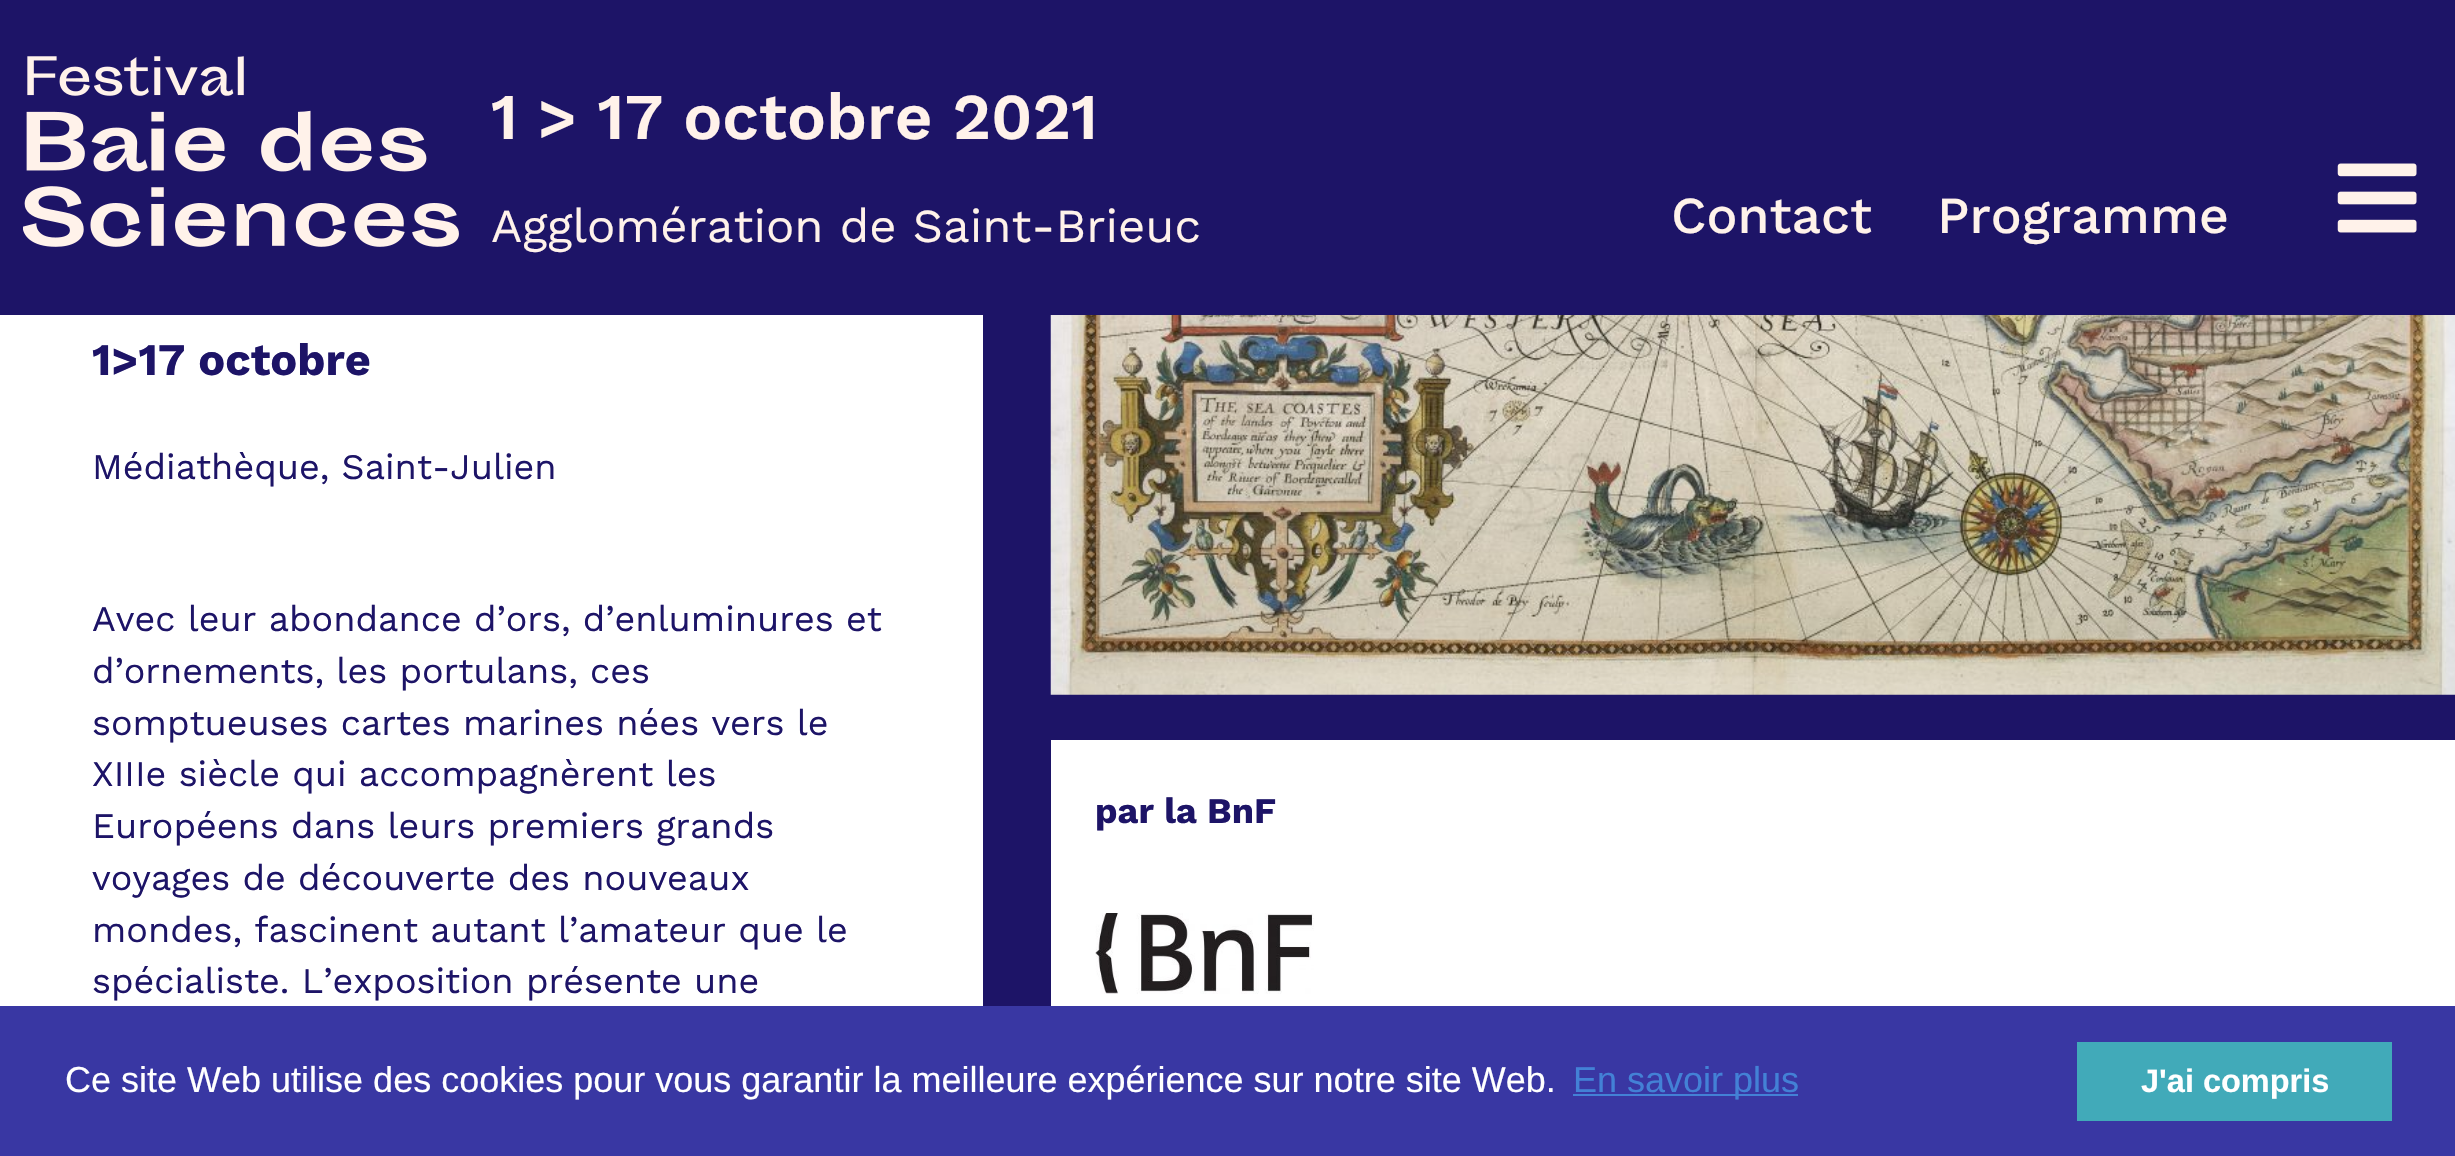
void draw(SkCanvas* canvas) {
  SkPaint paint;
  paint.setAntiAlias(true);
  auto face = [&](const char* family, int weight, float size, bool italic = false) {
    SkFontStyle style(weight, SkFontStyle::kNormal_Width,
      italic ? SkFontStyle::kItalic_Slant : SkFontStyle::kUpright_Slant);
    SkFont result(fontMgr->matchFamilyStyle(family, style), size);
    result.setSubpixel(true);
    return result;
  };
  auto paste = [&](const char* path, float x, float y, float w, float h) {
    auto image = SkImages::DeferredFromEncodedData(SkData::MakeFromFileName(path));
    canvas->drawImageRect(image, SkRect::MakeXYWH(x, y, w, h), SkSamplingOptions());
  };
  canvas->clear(0xff1d1467);
  paste("img/1.png", 23, 56, 436, 191);
  paste("img/2.png", 2337, 163, 80, 70);
  paint.setColor(0xffffffff);
  canvas->drawRect(SkRect::MakeXYWH(0, 315, 983, 691), paint);
  paste("img/3.png", 1050, 315, 1405, 380);
  canvas->drawRect(SkRect::MakeXYWH(1051, 740, 1404, 266), paint);
  paste("img/4.png", 1095, 913, 219, 81);
  {
    const struct { float x, y, w, h; SkColor color; } items[] = {
      {0, 1006, 2455, 150, 0xff3937a3},
      {1573, 1094, 225, 2, 0xff4381d6},
      {2077, 1042, 315, 79, 0xff41aab9},
    };
    for (auto [x, y, w, h, color] : items) {
      paint.setColor(color);
      canvas->drawRect(SkRect::MakeXYWH(x, y, w, h), paint);
    }
  }
  auto f0 = face("Work Sans", 600, 65.25f);
  paint.setColor(0xfffff2ea);
  canvas->drawString("1 > 17 octobre 2021", 491, 139, f0, paint);
  auto f1 = face("Work Sans", 400, 47.25f);
  canvas->drawString("Agglomération de Saint-Brieuc", 491, 242, f1, paint);
  auto f2 = face("Work Sans", 500, 51.75f);
  canvas->drawString("Contact", 1671, 233, f2, paint);
  canvas->drawString("Programme", 1937, 233, f2, paint);
  auto f3 = face("Work Sans", 700, 45);
  paint.setColor(0xff1d1467);
  canvas->drawString("1>17 octobre", 92, 375, f3, paint);
  auto f4 = face("Work Sans", 400, 36);
  {
    const struct { const char* s; float x, y; } items[] = {
      {"Médiathèque, Saint-Julien", 92, 479},
      {"Avec leur abondance d’ors, d’enluminures et", 92, 631},
      {"d’ornements, les portulans, ces", 92, 683},
      {"somptueuses cartes marines nées vers le", 92, 735},
      {"XIIIe siècle qui accompagnèrent les", 92, 786},
      {"Européens dans leurs premiers grands", 92, 838},
      {"voyages de découverte des nouveaux", 92, 890},
      {"mondes, fascinent autant l’amateur que le", 92, 942},
      {"spécialiste. L’exposition présente une", 92, 993},
    };
    for (auto [s, x, y] : items) {
      canvas->drawString(s, x, y, f4, paint);
    }
  }
  auto f5 = face("Work Sans", 700, 36);
  canvas->drawString("par la BnF", 1095, 823, f5, paint);
  auto f6 = face("Liberation Sans", 400, 36);
  paint.setColor(0xffffffff);
  canvas->drawString("Ce site Web utilise des cookies pour vous garantir la meilleure expérience sur notre site Web.", 65, 1092, f6, paint);
  paint.setColor(0xff4381d6);
  canvas->drawString("En savoir plus", 1573, 1092, f6, paint);
  auto f7 = face("Liberation Sans", 700, 32.5f);
  paint.setColor(0xffffffff);
  canvas->drawString("J'ai compris", 2141, 1092, f7, paint);
}
